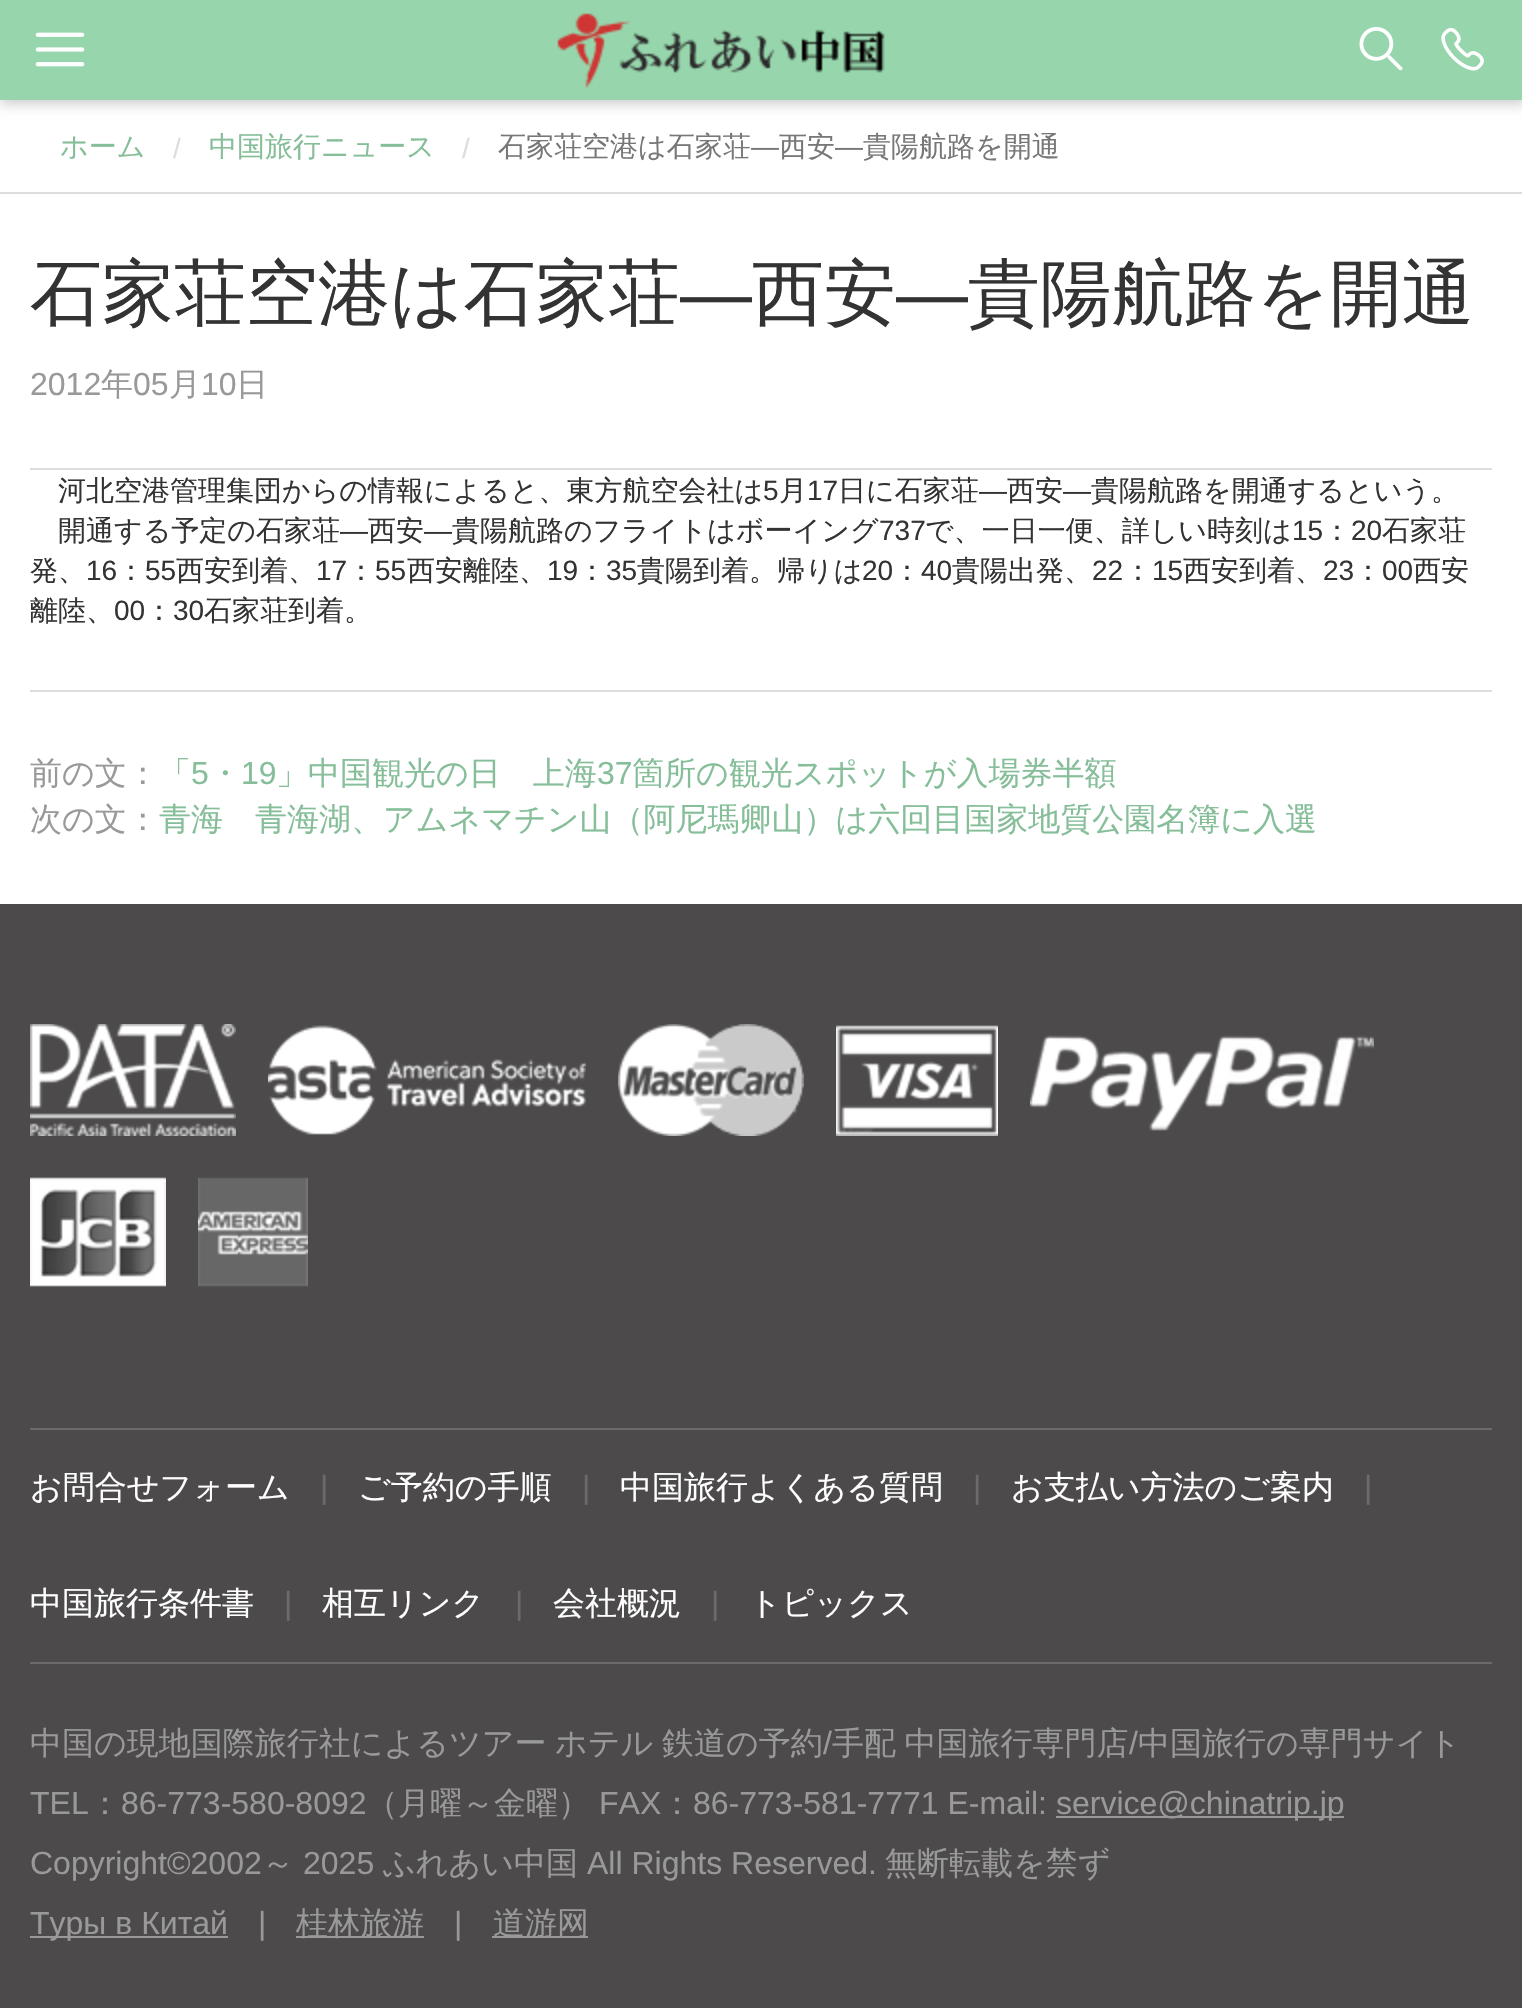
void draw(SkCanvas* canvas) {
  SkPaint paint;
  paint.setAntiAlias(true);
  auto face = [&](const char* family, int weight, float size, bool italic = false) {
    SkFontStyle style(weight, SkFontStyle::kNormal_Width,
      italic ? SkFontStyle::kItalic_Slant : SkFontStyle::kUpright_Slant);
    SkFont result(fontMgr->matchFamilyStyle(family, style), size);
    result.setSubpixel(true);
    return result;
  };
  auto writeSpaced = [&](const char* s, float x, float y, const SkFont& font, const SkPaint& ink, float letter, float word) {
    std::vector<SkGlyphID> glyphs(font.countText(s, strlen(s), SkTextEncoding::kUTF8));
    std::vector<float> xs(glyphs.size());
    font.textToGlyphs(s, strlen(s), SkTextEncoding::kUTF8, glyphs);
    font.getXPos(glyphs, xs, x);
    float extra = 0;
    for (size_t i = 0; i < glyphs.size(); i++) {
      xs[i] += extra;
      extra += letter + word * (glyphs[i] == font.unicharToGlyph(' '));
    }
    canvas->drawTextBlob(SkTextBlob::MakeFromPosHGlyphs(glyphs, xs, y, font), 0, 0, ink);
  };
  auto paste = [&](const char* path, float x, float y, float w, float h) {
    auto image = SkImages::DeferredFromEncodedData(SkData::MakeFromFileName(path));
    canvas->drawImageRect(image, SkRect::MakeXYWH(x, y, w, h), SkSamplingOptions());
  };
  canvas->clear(0xffffffff);
  paint.setColor(0xffcccccc);
  paint.setMaskFilter(SkMaskFilter::MakeBlur(kNormal_SkBlurStyle, 6));
  canvas->drawRect(SkRect::MakeXYWH(0, 0, 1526, 104), paint);
  paint.setMaskFilter(nullptr);
  paint.setColor(0xff97d6ac);
  canvas->drawRect(SkRect::MakeXYWH(0, 0, 1522, 100), paint);
  paste("img/1.png", 35, 32, 50, 35);
  paste("img/2.png", 557, 13, 328, 76);
  paste("img/3.png", 1359, 27, 44, 44);
  paste("img/4.png", 1441, 27, 43, 44);
  {
    const struct { float x, y, w, h; SkColor color; } items[] = {
      {0, 192, 1522, 2, 0xffdddddd},
      {30, 468, 1462, 2, 0xffdddddd},
      {30, 690, 1462, 2, 0xffdddddd},
      {0, 904, 1522, 1104, 0xff4c4a4a},
    };
    for (auto [x, y, w, h, color] : items) {
      paint.setColor(color);
      canvas->drawRect(SkRect::MakeXYWH(x, y, w, h), paint);
    }
  }
  paste("img/5.png", 30, 1024, 206, 112);
  paste("img/6.png", 268, 1025, 318, 110);
  paste("img/7.png", 618, 1024, 186, 112);
  paste("img/8.png", 836, 1025, 162, 111);
  paste("img/9.png", 1030, 1035, 344, 96);
  paste("img/10.png", 30, 1177, 136, 110);
  paste("img/11.png", 198, 1177, 110, 110);
  {
    const struct { float x, y, w, h; SkColor color; } items[] = {
      {30, 1428, 1462, 2, 0xff6c6a6a},
      {30, 1662, 1462, 2, 0xff6c6a6a},
      {1056, 1816, 288, 2, 0xff999999},
      {30, 1936, 198, 2, 0xff999999},
      {296, 1936, 128, 2, 0xff999999},
      {492, 1936, 96, 2, 0xff999999},
    };
    for (auto [x, y, w, h, color] : items) {
      paint.setColor(color);
      canvas->drawRect(SkRect::MakeXYWH(x, y, w, h), paint);
    }
  }
  auto f0 = face("WenQuanYi Zen Hei", 500, 28);
  paint.setColor(0xff86be99);
  canvas->drawString("ホーム", 60, 156, f0, paint);
  auto f1 = face("Liberation Sans", 400, 28);
  paint.setColor(0xffdddddd);
  canvas->drawString("/", 173, 158, f1, paint);
  paint.setColor(0xff86be99);
  canvas->drawString("中国旅行ニュース", 209, 156, f0, paint);
  paint.setColor(0xffdddddd);
  canvas->drawString("/", 462, 158, f1, paint);
  paint.setColor(0xff777777);
  canvas->drawString("石家荘空港は石家荘", 498, 156, f0, paint);
  canvas->drawString("―", 751, 156, f1, paint);
  canvas->drawString("西安", 779, 156, f0, paint);
  canvas->drawString("―", 835, 156, f1, paint);
  canvas->drawString("貴陽航路を開通", 863, 156, f0, paint);
  auto f2 = face("WenQuanYi Zen Hei", 500, 72);
  paint.setColor(0xff333333);
  canvas->drawString("石家荘空港は石家荘", 30, 318, f2, paint);
  auto f3 = face("Liberation Sans", 400, 72);
  canvas->drawString("―", 680, 318, f3, paint);
  canvas->drawString("西安", 752, 318, f2, paint);
  canvas->drawString("―", 896, 318, f3, paint);
  canvas->drawString("貴陽航路を開通", 968, 318, f2, paint);
  auto f4 = face("Liberation Sans", 400, 32);
  paint.setColor(0xff999999);
  canvas->drawString("2012", 30, 395, f4, paint);
  auto f5 = face("WenQuanYi Zen Hei", 500, 32);
  canvas->drawString("年", 101, 395, f5, paint);
  canvas->drawString("05", 133, 395, f4, paint);
  canvas->drawString("月", 169, 395, f5, paint);
  canvas->drawString("10", 201, 395, f4, paint);
  canvas->drawString("日", 236, 395, f5, paint);
  paint.setColor(0xff333333);
  canvas->drawString("河北空港管理集団からの情報によると、東方航空会社は", 58, 500, f0, paint);
  canvas->drawString("5", 763, 500, f1, paint);
  canvas->drawString("月", 779, 500, f0, paint);
  canvas->drawString("17", 807, 500, f1, paint);
  canvas->drawString("日に石家荘", 838, 500, f0, paint);
  canvas->drawString("―", 979, 500, f1, paint);
  canvas->drawString("西安", 1007, 500, f0, paint);
  canvas->drawString("―", 1063, 500, f1, paint);
  canvas->drawString("貴陽航路を開通するという。", 1091, 500, f0, paint);
  canvas->drawString("開通する予定の石家荘", 58, 540, f0, paint);
  canvas->drawString("―", 340, 540, f1, paint);
  canvas->drawString("西安", 368, 540, f0, paint);
  canvas->drawString("―", 424, 540, f1, paint);
  canvas->drawString("貴陽航路のフライトはボーイング", 452, 540, f0, paint);
  canvas->drawString("737", 879, 540, f1, paint);
  canvas->drawString("で、一日一便、詳しい時刻は", 925, 540, f0, paint);
  canvas->drawString("15", 1292, 540, f1, paint);
  canvas->drawString("：", 1323, 540, f0, paint);
  canvas->drawString("20", 1351, 540, f1, paint);
  canvas->drawString("石家荘", 1382, 540, f0, paint);
  canvas->drawString("発、", 30, 580, f0, paint);
  canvas->drawString("16", 86, 580, f1, paint);
  canvas->drawString("：", 117, 580, f0, paint);
  canvas->drawString("55", 145, 580, f1, paint);
  canvas->drawString("西安到着、", 176, 580, f0, paint);
  canvas->drawString("17", 316, 580, f1, paint);
  canvas->drawString("：", 347, 580, f0, paint);
  canvas->drawString("55", 375, 580, f1, paint);
  canvas->drawString("西安離陸、", 407, 580, f0, paint);
  canvas->drawString("19", 547, 580, f1, paint);
  canvas->drawString("：", 578, 580, f0, paint);
  canvas->drawString("35", 606, 580, f1, paint);
  canvas->drawString("貴陽到着。帰りは", 637, 580, f0, paint);
  canvas->drawString("20", 862, 580, f1, paint);
  canvas->drawString("：", 893, 580, f0, paint);
  canvas->drawString("40", 921, 580, f1, paint);
  canvas->drawString("貴陽出発、", 952, 580, f0, paint);
  canvas->drawString("22", 1092, 580, f1, paint);
  canvas->drawString("：", 1124, 580, f0, paint);
  canvas->drawString("15", 1152, 580, f1, paint);
  canvas->drawString("西安到着、", 1183, 580, f0, paint);
  canvas->drawString("23", 1323, 580, f1, paint);
  canvas->drawString("：", 1354, 580, f0, paint);
  canvas->drawString("00", 1382, 580, f1, paint);
  canvas->drawString("西安", 1413, 580, f0, paint);
  canvas->drawString("離陸、", 30, 620, f0, paint);
  canvas->drawString("00", 114, 620, f1, paint);
  canvas->drawString("：", 145, 620, f0, paint);
  canvas->drawString("30", 173, 620, f1, paint);
  canvas->drawString("石家荘到着。", 204, 620, f0, paint);
  paint.setColor(0xff999999);
  canvas->drawString("前の文：", 30, 784, f5, paint);
  paint.setColor(0xff86be99);
  canvas->drawString("「", 159, 784, f5, paint);
  canvas->drawString("5", 191, 784, f4, paint);
  canvas->drawString("・", 209, 784, f5, paint);
  canvas->drawString("19", 241, 784, f4, paint);
  canvas->drawString("」中国観光の日　上海", 276, 784, f5, paint);
  canvas->drawString("37", 597, 784, f4, paint);
  canvas->drawString("箇所の観光スポットが入場券半額", 632, 784, f5, paint);
  paint.setColor(0xff999999);
  canvas->drawString("次の文：", 30, 830, f5, paint);
  paint.setColor(0xff86be99);
  canvas->drawString("青海　青海湖、アムネマチン山（阿尼瑪卿山）は六回目国家地質公園名簿に入選", 159, 830, f5, paint);
  paint.setColor(0xffffffff);
  canvas->drawString("お問合せフォーム", 30, 1498, f5, paint);
  paint.setColor(0xff6c6a6a);
  canvas->drawString("|", 320, 1498, f4, paint);
  paint.setColor(0xffffffff);
  canvas->drawString("ご予約の手順", 358, 1498, f5, paint);
  paint.setColor(0xff6c6a6a);
  canvas->drawString("|", 582, 1498, f4, paint);
  paint.setColor(0xffffffff);
  canvas->drawString("中国旅行よくある質問", 620, 1498, f5, paint);
  paint.setColor(0xff6c6a6a);
  canvas->drawString("|", 973, 1498, f4, paint);
  paint.setColor(0xffffffff);
  canvas->drawString("お支払い方法のご案内", 1011, 1498, f5, paint);
  paint.setColor(0xff6c6a6a);
  canvas->drawString("|", 1364, 1498, f4, paint);
  paint.setColor(0xffffffff);
  canvas->drawString("中国旅行条件書", 30, 1614, f5, paint);
  paint.setColor(0xff6c6a6a);
  canvas->drawString("|", 284, 1614, f4, paint);
  paint.setColor(0xffffffff);
  canvas->drawString("相互リンク", 322, 1614, f5, paint);
  paint.setColor(0xff6c6a6a);
  canvas->drawString("|", 515, 1614, f4, paint);
  paint.setColor(0xffffffff);
  canvas->drawString("会社概況", 553, 1614, f5, paint);
  paint.setColor(0xff6c6a6a);
  canvas->drawString("|", 711, 1614, f4, paint);
  paint.setColor(0xffffffff);
  canvas->drawString("トピックス", 749, 1614, f5, paint);
  paint.setColor(0xff999999);
  writeSpaced("中国の現地国際旅行社によるツアー ホテル 鉄道の予約", 30, 1754, f5, paint, 0, -1);
  canvas->drawString("/", 823, 1754, f4, paint);
  writeSpaced("手配 中国旅行専門店", 832, 1754, f5, paint, 0, -1);
  canvas->drawString("/", 1129, 1754, f4, paint);
  canvas->drawString("中国旅行の専門サイト", 1138, 1754, f5, paint);
  canvas->drawString("TEL", 30, 1814, f4, paint);
  canvas->drawString("：", 89, 1814, f5, paint);
  canvas->drawString("86-773-580-8092", 121, 1814, f4, paint);
  canvas->drawString("（月曜～金曜）", 366, 1814, f5, paint);
  canvas->drawString("FAX", 599, 1814, f4, paint);
  canvas->drawString("：", 661, 1814, f5, paint);
  {
    const struct { const char* s; float x, y; } items[] = {
      {"86-773-581-7771 E-mail:", 693, 1814},
      {"service@chinatrip.jp", 1056, 1814},
      {"Copyright©2002", 30, 1874},
    };
    for (auto [s, x, y] : items) {
      canvas->drawString(s, x, y, f4, paint);
    }
  }
  canvas->drawString("～", 262, 1874, f5, paint);
  canvas->drawString("2025", 303, 1874, f4, paint);
  canvas->drawString("ふれあい中国", 383, 1874, f5, paint);
  canvas->drawString("All Rights Reserved.", 587, 1874, f4, paint);
  canvas->drawString("無断転載を禁ず", 885, 1874, f5, paint);
  canvas->drawString("Туры в Китай", 30, 1934, f4, paint);
  canvas->drawString("|", 258, 1934, f4, paint);
  canvas->drawString("桂林旅游", 296, 1934, f5, paint);
  canvas->drawString("|", 454, 1934, f4, paint);
  canvas->drawString("道游网", 493, 1934, f5, paint);
}
